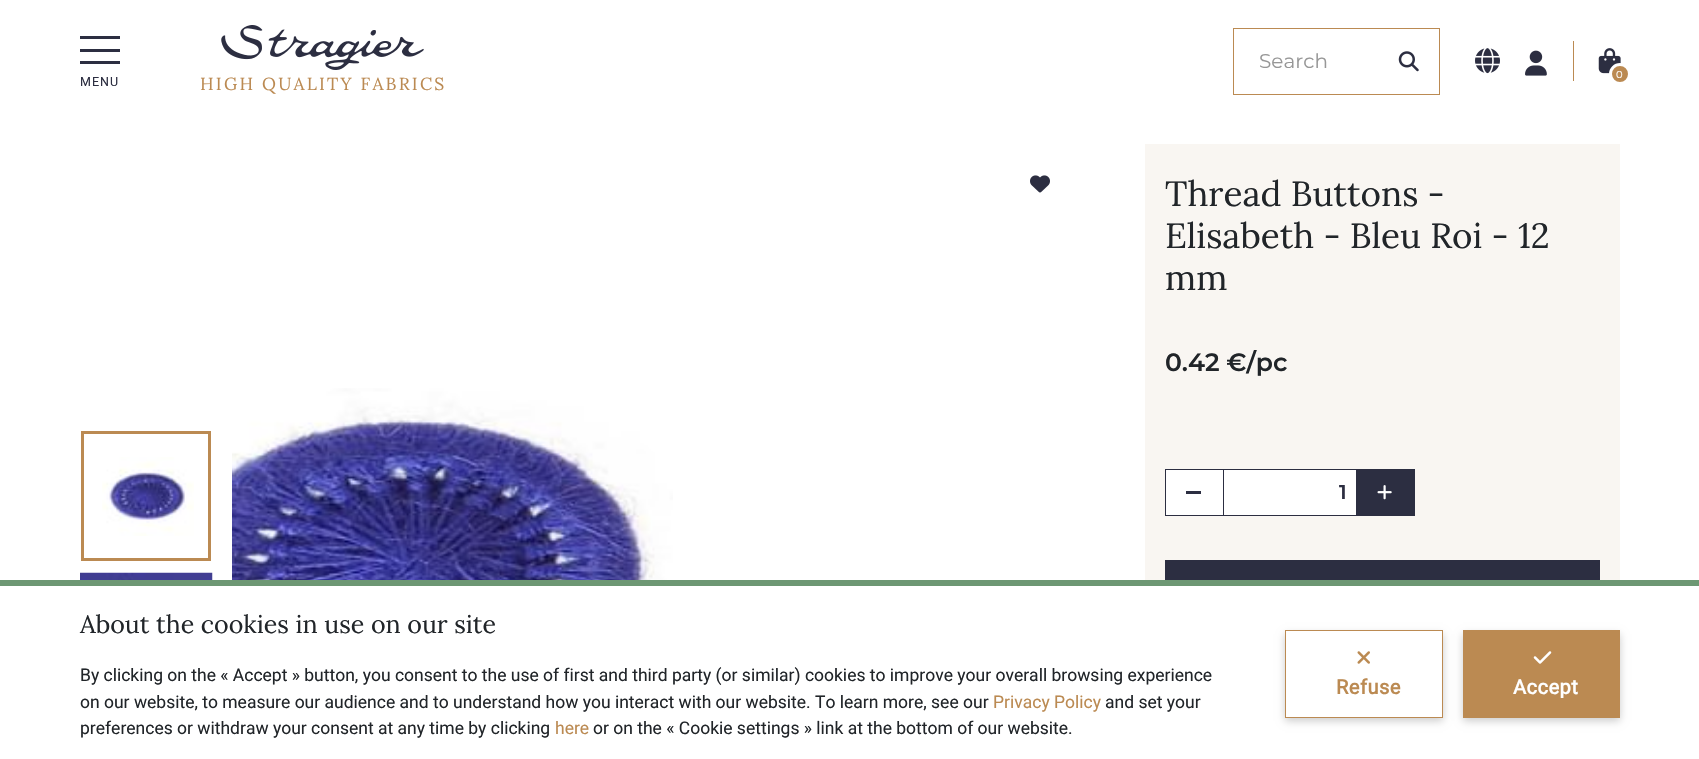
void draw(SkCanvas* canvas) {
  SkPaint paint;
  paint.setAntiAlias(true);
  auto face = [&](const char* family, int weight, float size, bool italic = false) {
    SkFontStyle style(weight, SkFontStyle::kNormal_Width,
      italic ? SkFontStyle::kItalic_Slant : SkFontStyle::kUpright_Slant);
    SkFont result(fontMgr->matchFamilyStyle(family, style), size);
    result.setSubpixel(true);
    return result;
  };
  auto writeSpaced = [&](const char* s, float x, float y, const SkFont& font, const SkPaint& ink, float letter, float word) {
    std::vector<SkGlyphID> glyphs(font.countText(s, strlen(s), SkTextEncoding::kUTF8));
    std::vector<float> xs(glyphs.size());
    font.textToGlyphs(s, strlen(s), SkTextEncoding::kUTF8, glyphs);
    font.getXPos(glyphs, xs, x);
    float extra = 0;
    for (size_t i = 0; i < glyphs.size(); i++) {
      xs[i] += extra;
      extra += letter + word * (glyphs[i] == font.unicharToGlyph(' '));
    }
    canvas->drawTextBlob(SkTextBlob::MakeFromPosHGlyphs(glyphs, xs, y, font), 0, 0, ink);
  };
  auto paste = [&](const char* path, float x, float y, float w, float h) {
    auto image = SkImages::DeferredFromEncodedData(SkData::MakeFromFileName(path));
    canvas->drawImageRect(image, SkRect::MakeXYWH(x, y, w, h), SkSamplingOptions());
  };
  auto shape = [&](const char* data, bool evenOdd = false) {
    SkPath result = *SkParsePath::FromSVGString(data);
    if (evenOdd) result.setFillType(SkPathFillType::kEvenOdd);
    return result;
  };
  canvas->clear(0xffffffff);
  paint.setStroke(true);
  paint.setStrokeWidth(1);
  paint.setColor(0xffbb8a52);
  canvas->drawRect(SkRect::MakeXYWH(1233.5f, 28.5f, 206, 66), paint);
  paste("img/1.png", 1398, 51, 21, 21);
  paste("img/2.png", 1475, 48, 25, 26);
  paste("img/3.png", 1525, 50, 22, 26);
  paint.setStroke(false);
  canvas->drawRect(SkRect::MakeXYWH(1573, 41, 1, 40), paint);
  paste("img/4.png", 1598, 48, 23, 26);
  canvas->drawCircle(1620, 74, 9.5f, paint);
  paint.setStroke(true);
  paint.setStrokeWidth(3);
  paint.setColor(0xffffffff);
  canvas->drawCircle(1620, 74, 9.5f, paint);
  paint.setStroke(false);
  {
    const struct { float x, y, w, h; SkColor color; } items[] = {
      {80, 49, 40, 3, 0xff2c2e41},
      {80, 36, 40, 3, 0xff2c2e41},
      {80, 61, 40, 3, 0xff2c2e41},
    };
    for (auto [x, y, w, h, color] : items) {
      paint.setColor(color);
      canvas->drawRect(SkRect::MakeXYWH(x, y, w, h), paint);
    }
  }
  paste("img/5.png", 221, 25, 203, 45);
  paste("img/6.png", 102, 457, 92, 79);
  paint.setStroke(true);
  paint.setColor(0xffbb8a52);
  canvas->drawRect(SkRect::MakeXYWH(82.5f, 432.5f, 127, 127), paint);
  paste("img/7.png", 80, 572, 133, 8);
  paste("img/8.png", 1030, 175, 20, 18);
  paste("img/9.png", 232, 388, 441, 192);
  paint.setStroke(false);
  paint.setColor(0xfff9f6f2);
  canvas->drawRect(SkRect::MakeXYWH(1145, 144, 475, 436), paint);
  paint.setColor(0xffffffff);
  canvas->drawRect(SkRect::MakeXYWH(1165.5f, 469.5f, 58, 46), paint);
  paint.setStroke(true);
  paint.setStrokeWidth(1);
  paint.setColor(0xff2c2e41);
  canvas->drawRect(SkRect::MakeXYWH(1165.5f, 469.5f, 58, 46), paint);
  paint.setStroke(false);
  {
    const struct { float x, y, w, h; SkColor color; } items[] = {
      {1186, 491, 15, 3, 0xff2c2e41},
      {1224, 470, 132, 45, 0xffffffff},
      {1224, 469, 132, 1, 0xff2c2e41},
      {1224, 515, 132, 1, 0xff2c2e41},
      {1356, 469, 59, 47, 0xff2c2e41},
    };
    for (auto [x, y, w, h, color] : items) {
      paint.setColor(color);
      canvas->drawRect(SkRect::MakeXYWH(x, y, w, h), paint);
    }
  }
  paste("img/10.png", 1377, 485, 15, 15);
  canvas->drawRect(SkRect::MakeXYWH(1165, 560, 435, 20), paint);
  paint.setColor(0xff6d9773);
  canvas->drawRect(SkRect::MakeXYWH(0, 580, 1699, 6), paint);
  canvas->save();
  canvas->clipPath(shape("M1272 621H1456V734H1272ZM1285 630H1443V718H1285Z", true), true);
  paint.setColor(0x33000000);
  paint.setMaskFilter(SkMaskFilter::MakeBlur(kNormal_SkBlurStyle, 4));
  canvas->drawRect(SkRect::MakeXYWH(1285, 634, 158, 87), paint);
  paint.setMaskFilter(nullptr);
  canvas->restore();
  paint.setStroke(true);
  paint.setColor(0xffbb8a52);
  canvas->drawRect(SkRect::MakeXYWH(1285.5f, 630.5f, 157, 87), paint);
  paste("img/11.png", 1357, 651, 13, 13);
  paint.setStroke(false);
  paint.setColor(0x33000000);
  paint.setMaskFilter(SkMaskFilter::MakeBlur(kNormal_SkBlurStyle, 4));
  canvas->drawRect(SkRect::MakeXYWH(1463, 634, 157, 87), paint);
  paint.setMaskFilter(nullptr);
  paint.setColor(0xffbb8a52);
  canvas->drawRect(SkRect::MakeXYWH(1463, 630, 157, 88), paint);
  paste("img/12.png", 1533, 651, 19, 13);
  auto f0 = face("Montserrat", 400, 20);
  paint.setColor(0xff979797);
  canvas->drawString("Search", 1259, 68, f0, paint);
  auto f1 = face("Montserrat", 400, 10);
  paint.setColor(0xffffffff);
  writeSpaced("0", 1616, 78, f1, paint, 1, 0);
  auto f2 = face("Roboto", 400, 12.5f);
  paint.setColor(0xff2c2e41);
  writeSpaced("MENU", 80, 86, f2, paint, 1, 0);
  auto f3 = face("Lora", 400, 17.5f);
  paint.setColor(0xffbb8a52);
  writeSpaced("HIGH QUALITY FABRICS", 200, 90, f3, paint, 2.2f, 0);
  auto f4 = face("Lora", 400, 35);
  paint.setColor(0xff212529);
  {
    const struct { const char* s; float x, y; } items[] = {
      {"Thread Buttons -", 1165, 206},
      {"Elisabeth - Bleu Roi - 12", 1165, 248},
      {"mm", 1165, 290},
    };
    for (auto [s, x, y] : items) {
      canvas->drawString(s, x, y, f4, paint);
    }
  }
  auto f5 = face("Montserrat", 600, 25);
  canvas->drawString("0.42 €/pc", 1165, 371, f5, paint);
  auto f6 = face("Montserrat", 600, 20);
  paint.setColor(0xff2c2e41);
  canvas->drawString("1", 1339, 499, f6, paint);
  auto f7 = face("Lora", 400, 25);
  paint.setColor(0xff212529);
  canvas->drawString("About the cookies in use on our site", 80, 633, f7, paint);
  auto f8 = face("Roboto", 400, 17.5f);
  canvas->drawString("By clicking on the « Accept » button, you consent to the use of first and third party (or similar) cookies to improve your overall browsing experience", 80, 681, f8, paint);
  canvas->drawString("on our website, to measure our audience and to understand how you interact with our website. To learn more, see our", 80, 708, f8, paint);
  paint.setColor(0xffbb8a52);
  canvas->drawString("Privacy Policy", 993, 708, f8, paint);
  paint.setColor(0xff212529);
  canvas->drawString("and set your", 1105, 708, f8, paint);
  canvas->drawString("preferences or withdraw your consent at any time by clicking", 80, 734, f8, paint);
  paint.setColor(0xffbb8a52);
  canvas->drawString("here", 555, 734, f8, paint);
  paint.setColor(0xff212529);
  canvas->drawString("or on the « Cookie settings » link at the bottom of our website.", 593, 734, f8, paint);
  auto f9 = face("Roboto", 700, 20);
  paint.setColor(0xffbb8a52);
  writeSpaced("Refuse", 1336, 694, f9, paint, 0.5f, 0);
  paint.setColor(0xffffffff);
  writeSpaced("Accept", 1513, 694, f9, paint, 0.5f, 0);
}
